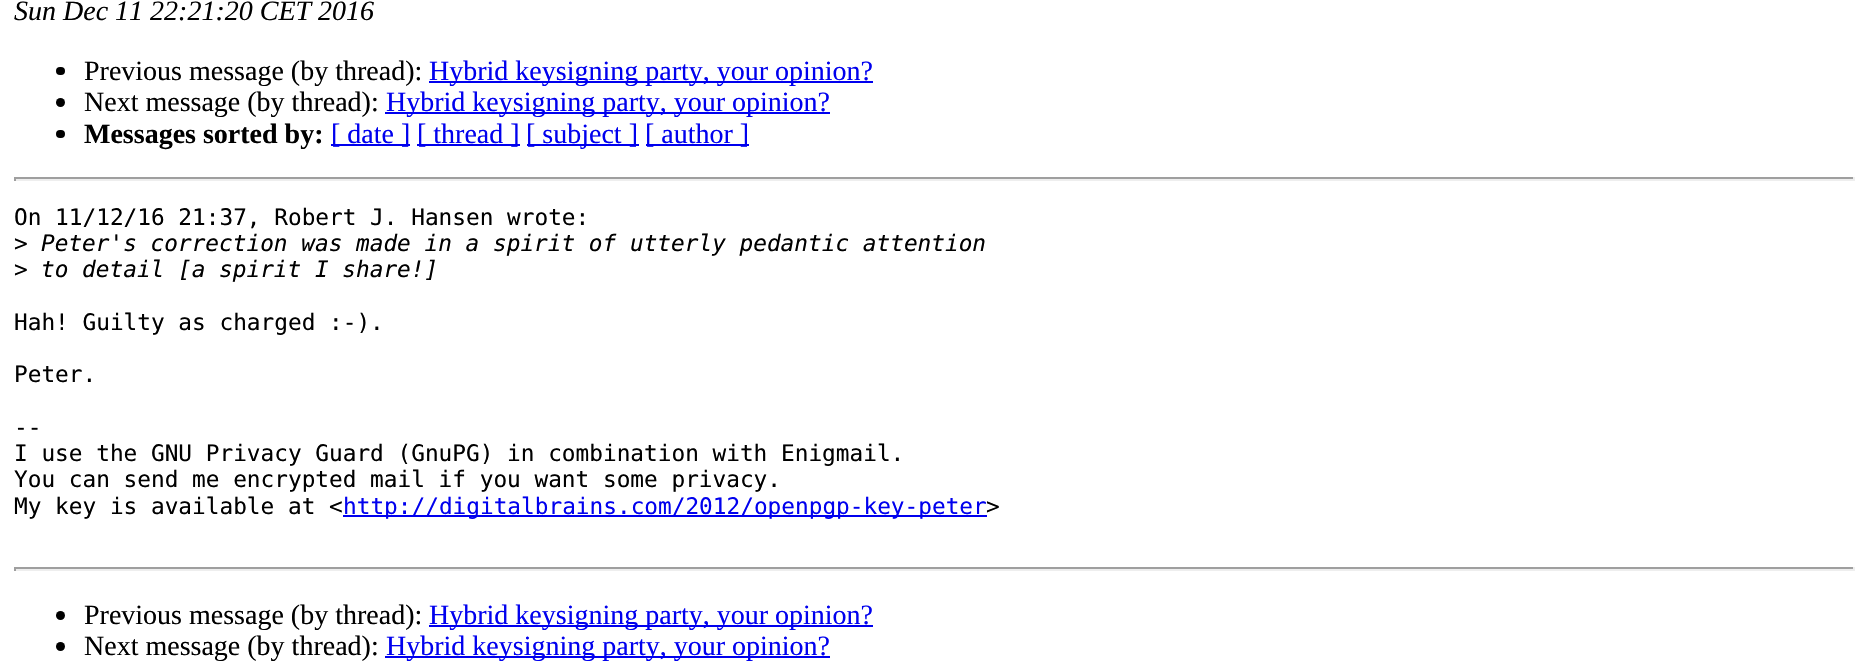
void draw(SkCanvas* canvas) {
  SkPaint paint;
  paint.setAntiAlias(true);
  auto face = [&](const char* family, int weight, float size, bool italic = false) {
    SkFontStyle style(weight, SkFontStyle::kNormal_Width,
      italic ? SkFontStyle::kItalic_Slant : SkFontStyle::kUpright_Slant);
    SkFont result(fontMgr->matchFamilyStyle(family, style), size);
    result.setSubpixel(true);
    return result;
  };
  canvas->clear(0xffffffff);
  paint.setColor(0xff000000);
  canvas->drawRoundRect(SkRect::MakeXYWH(56, 67, 9, 8), 4, 4, paint);
  paint.setColor(0xff0000ee);
  canvas->drawRect(SkRect::MakeXYWH(429, 81, 444, 2), paint);
  paint.setColor(0xff000000);
  canvas->drawCircle(60.5f, 102.5f, 4.5f, paint);
  paint.setColor(0xff0000ee);
  canvas->drawRect(SkRect::MakeXYWH(385, 112, 445, 2), paint);
  paint.setColor(0xff000000);
  canvas->drawRoundRect(SkRect::MakeXYWH(56, 130, 9, 8), 4, 4, paint);
  {
    const struct { float x, y, w, h; SkColor color; } items[] = {
      {331, 144, 79, 2, 0xff0000ee},
      {417, 144, 103, 2, 0xff0000ee},
      {527, 144, 112, 2, 0xff0000ee},
      {646, 144, 103, 2, 0xff0000ee},
      {14, 177, 1841, 2, 0xff9f9f9f},
      {1853, 177, 2, 4, 0xffeeeeee},
      {14, 179, 1841, 2, 0xffeeeeee},
      {14, 177, 2, 4, 0xff9f9f9f},
      {343, 515, 644, 2, 0xff0000ee},
      {14, 567, 1841, 2, 0xff9f9f9f},
      {1853, 567, 2, 4, 0xffeeeeee},
      {14, 569, 1841, 2, 0xffeeeeee},
      {14, 567, 2, 4, 0xff9f9f9f},
    };
    for (auto [x, y, w, h, color] : items) {
      paint.setColor(color);
      canvas->drawRect(SkRect::MakeXYWH(x, y, w, h), paint);
    }
  }
  paint.setColor(0xff000000);
  canvas->drawCircle(60.5f, 615.5f, 4.5f, paint);
  paint.setColor(0xff0000ee);
  canvas->drawRect(SkRect::MakeXYWH(429, 625, 444, 2), paint);
  paint.setColor(0xff000000);
  canvas->drawCircle(60.5f, 646.5f, 4.5f, paint);
  paint.setColor(0xff0000ee);
  canvas->drawRect(SkRect::MakeXYWH(385, 656, 445, 2), paint);
  auto f0 = face("Liberation Serif", 400, 28, true);
  paint.setColor(0xff000000);
  canvas->drawString("Sun Dec 11 22:21:20 CET 2016", 14, 20, f0, paint);
  auto f1 = face("Liberation Serif", 400, 28);
  canvas->drawString("Previous message (by thread):", 84, 80, f1, paint);
  paint.setColor(0xff0000ee);
  canvas->drawString("Hybrid keysigning party, your opinion?", 429, 80, f1, paint);
  paint.setColor(0xff000000);
  canvas->drawString("Next message (by thread):", 84, 111, f1, paint);
  paint.setColor(0xff0000ee);
  canvas->drawString("Hybrid keysigning party, your opinion?", 386, 111, f1, paint);
  auto f2 = face("Liberation Serif", 700, 28);
  paint.setColor(0xff000000);
  canvas->drawString("Messages sorted by:", 84, 143, f2, paint);
  paint.setColor(0xff0000ee);
  {
    const struct { const char* s; float x, y; } items[] = {
      {"[ date ]", 331, 143},
      {"[ thread ]", 417, 143},
      {"[ subject ]", 526, 143},
      {"[ author ]", 645, 143},
    };
    for (auto [s, x, y] : items) {
      canvas->drawString(s, x, y, f1, paint);
    }
  }
  auto f3 = face("DejaVu Sans Mono", 400, 22.75f);
  paint.setColor(0xff000000);
  canvas->drawString("On 11/12/16 21:37, Robert J. Hansen wrote:", 14, 225, f3, paint);
  canvas->drawString(">", 14, 251, f3, paint);
  auto f4 = face("DejaVu Sans Mono", 400, 22.75f, true);
  canvas->drawString("Peter's correction was made in a spirit of utterly pedantic attention", 41, 251, f4, paint);
  canvas->drawString(">", 14, 277, f3, paint);
  canvas->drawString("to detail [a spirit I share!]", 41, 277, f4, paint);
  {
    const struct { const char* s; float x, y; } items[] = {
      {"Hah! Guilty as charged :-).", 14, 330},
      {"Peter.", 14, 382},
      {"--", 14, 435},
      {"I use the GNU Privacy Guard (GnuPG) in combination with Enigmail.", 14, 461},
      {"You can send me encrypted mail if you want some privacy.", 14, 487},
      {"My key is available at <", 14, 514},
    };
    for (auto [s, x, y] : items) {
      canvas->drawString(s, x, y, f3, paint);
    }
  }
  paint.setColor(0xff0000ee);
  canvas->drawString("http://digitalbrains.com/2012/openpgp-key-peter", 343, 514, f3, paint);
  paint.setColor(0xff000000);
  canvas->drawString(">", 986, 514, f3, paint);
  canvas->drawString("Previous message (by thread):", 84, 624, f1, paint);
  paint.setColor(0xff0000ee);
  canvas->drawString("Hybrid keysigning party, your opinion?", 429, 624, f1, paint);
  paint.setColor(0xff000000);
  canvas->drawString("Next message (by thread):", 84, 655, f1, paint);
  paint.setColor(0xff0000ee);
  canvas->drawString("Hybrid keysigning party, your opinion?", 386, 655, f1, paint);
}
